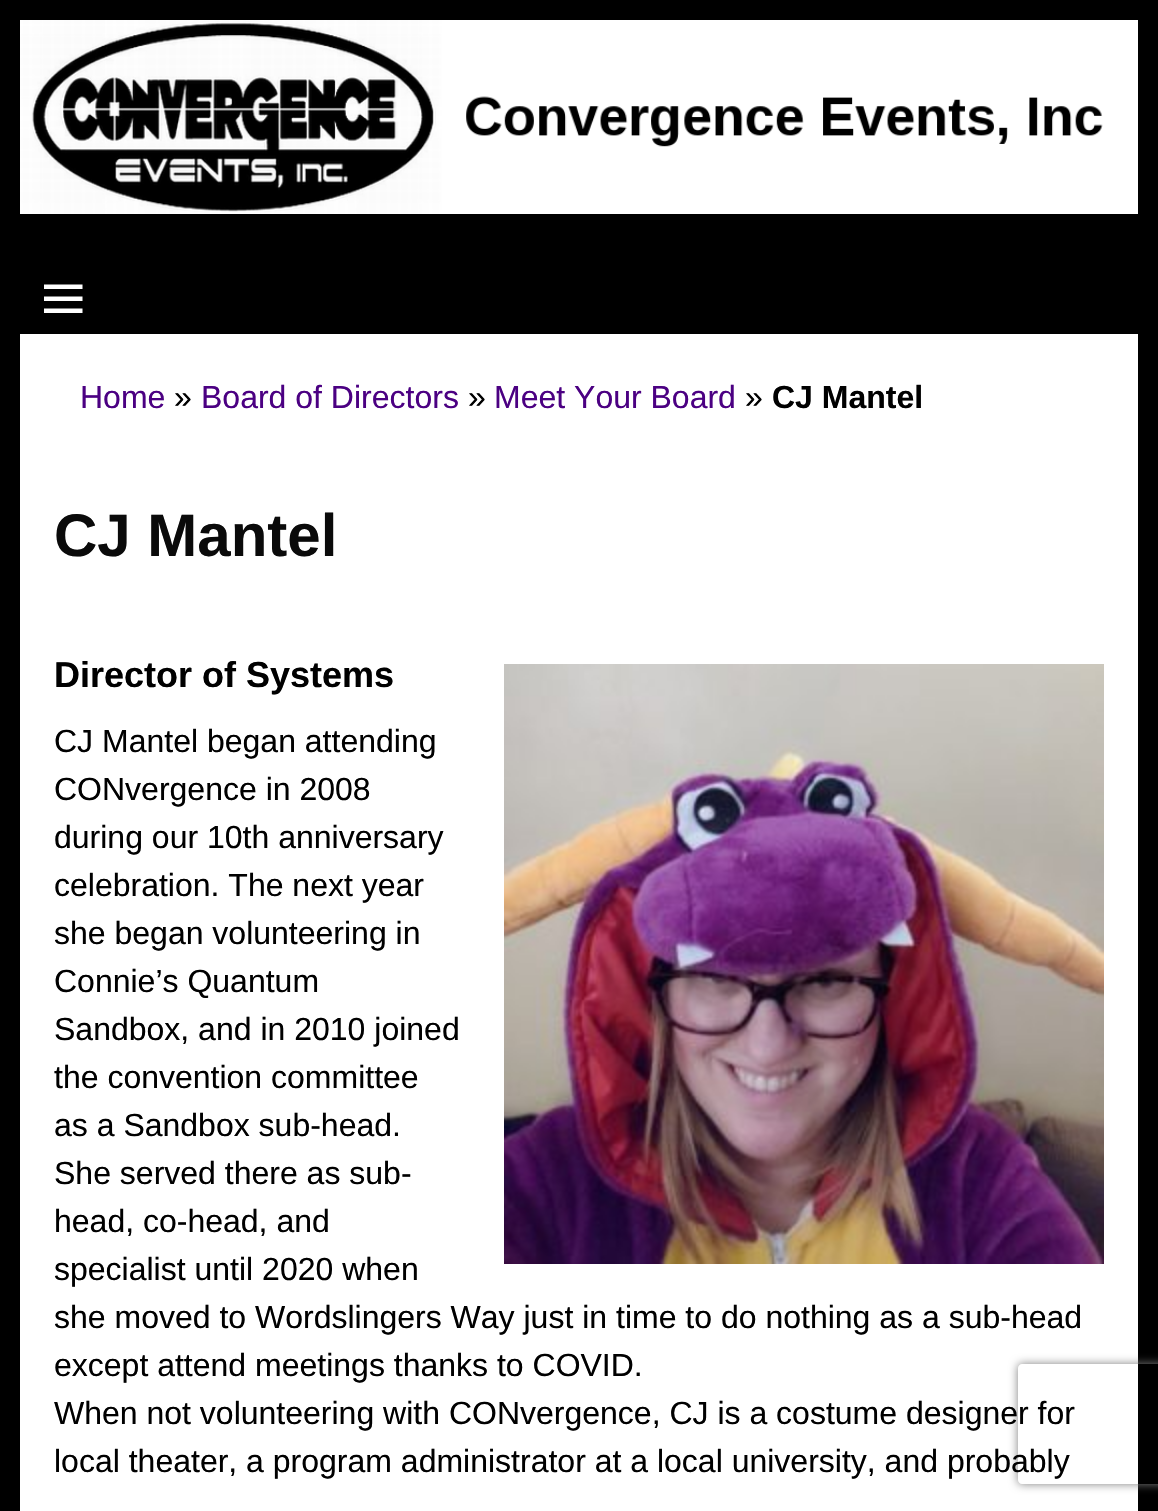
void draw(SkCanvas* canvas) {
  SkPaint paint;
  paint.setAntiAlias(true);
  auto face = [&](const char* family, int weight, float size, bool italic = false) {
    SkFontStyle style(weight, SkFontStyle::kNormal_Width,
      italic ? SkFontStyle::kItalic_Slant : SkFontStyle::kUpright_Slant);
    SkFont result(fontMgr->matchFamilyStyle(family, style), size);
    result.setSubpixel(true);
    return result;
  };
  auto paste = [&](const char* path, float x, float y, float w, float h) {
    auto image = SkImages::DeferredFromEncodedData(SkData::MakeFromFileName(path));
    canvas->drawImageRect(image, SkRect::MakeXYWH(x, y, w, h), SkSamplingOptions());
  };
  auto shape = [&](const char* data, bool evenOdd = false) {
    SkPath result = *SkParsePath::FromSVGString(data);
    if (evenOdd) result.setFillType(SkPathFillType::kEvenOdd);
    return result;
  };
  canvas->clear(0xff000000);
  paste("img/1.png", 20, 20, 1118, 194);
  paint.setColor(0xffffffff);
  canvas->drawPath(shape("M44 313V308.5H82.5V313ZM44 284.5H82.5V289H44ZM44 301V296.5H82.5V301Z"), paint);
  canvas->drawRect(SkRect::MakeXYWH(20, 334, 1118, 1177), paint);
  paste("img/2.png", 504, 664, 600, 600);
  canvas->save();
  canvas->clipPath(shape("M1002 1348H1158V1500H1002ZM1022 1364H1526C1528 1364 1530 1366 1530 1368V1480C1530 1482 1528 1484 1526 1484H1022C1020 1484 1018 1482 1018 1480V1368C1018 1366 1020 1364 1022 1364Z", true), true);
  paint.setColor(0xff808080);
  paint.setMaskFilter(SkMaskFilter::MakeBlur(kNormal_SkBlurStyle, 5));
  canvas->drawRoundRect(SkRect::MakeXYWH(1018, 1364, 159, 120), 4, 4, paint);
  paint.setMaskFilter(nullptr);
  canvas->restore();
  auto f0 = face("Liberation Sans", 400, 32);
  paint.setColor(0xff4b0082);
  canvas->drawString("Home", 80, 408, f0, paint);
  paint.setColor(0xff000000);
  canvas->drawString("»", 174, 408, f0, paint);
  paint.setColor(0xff4b0082);
  canvas->drawString("Board of Directors", 201, 408, f0, paint);
  paint.setColor(0xff000000);
  canvas->drawString("»", 468, 408, f0, paint);
  paint.setColor(0xff4b0082);
  canvas->drawString("Meet Your Board", 494, 408, f0, paint);
  paint.setColor(0xff000000);
  canvas->drawString("»", 745, 408, f0, paint);
  auto f1 = face("Liberation Sans", 700, 32);
  canvas->drawString("CJ Mantel", 772, 408, f1, paint);
  auto f2 = face("Liberation Sans", 700, 60);
  paint.setColor(0xff0a0a0a);
  canvas->drawString("CJ Mantel", 54, 556, f2, paint);
  auto f3 = face("Liberation Sans", 700, 36);
  paint.setColor(0xff000000);
  canvas->drawString("Director of Systems", 54, 687, f3, paint);
  {
    const struct { const char* s; float x, y; } items[] = {
      {"CJ Mantel began attending", 54, 752},
      {"CONvergence in 2008", 54, 800},
      {"during our 10th anniversary", 54, 848},
      {"celebration. The next year", 54, 896},
      {"she began volunteering in", 54, 944},
      {"Connie’s Quantum", 54, 992},
      {"Sandbox, and in 2010 joined", 54, 1040},
      {"the convention committee", 54, 1088},
      {"as a Sandbox sub-head.", 54, 1136},
      {"She served there as sub-", 54, 1184},
      {"head, co-head, and", 54, 1232},
      {"specialist until 2020 when", 54, 1280},
      {"she moved to Wordslingers Way just in time to do nothing as a sub-head", 54, 1328},
      {"except attend meetings thanks to COVID.", 54, 1376},
      {"When not volunteering with CONvergence, CJ is a costume designer for", 54, 1424},
      {"local theater, a program administrator at a local university, and probably", 54, 1472},
    };
    for (auto [s, x, y] : items) {
      canvas->drawString(s, x, y, f0, paint);
    }
  }
}
